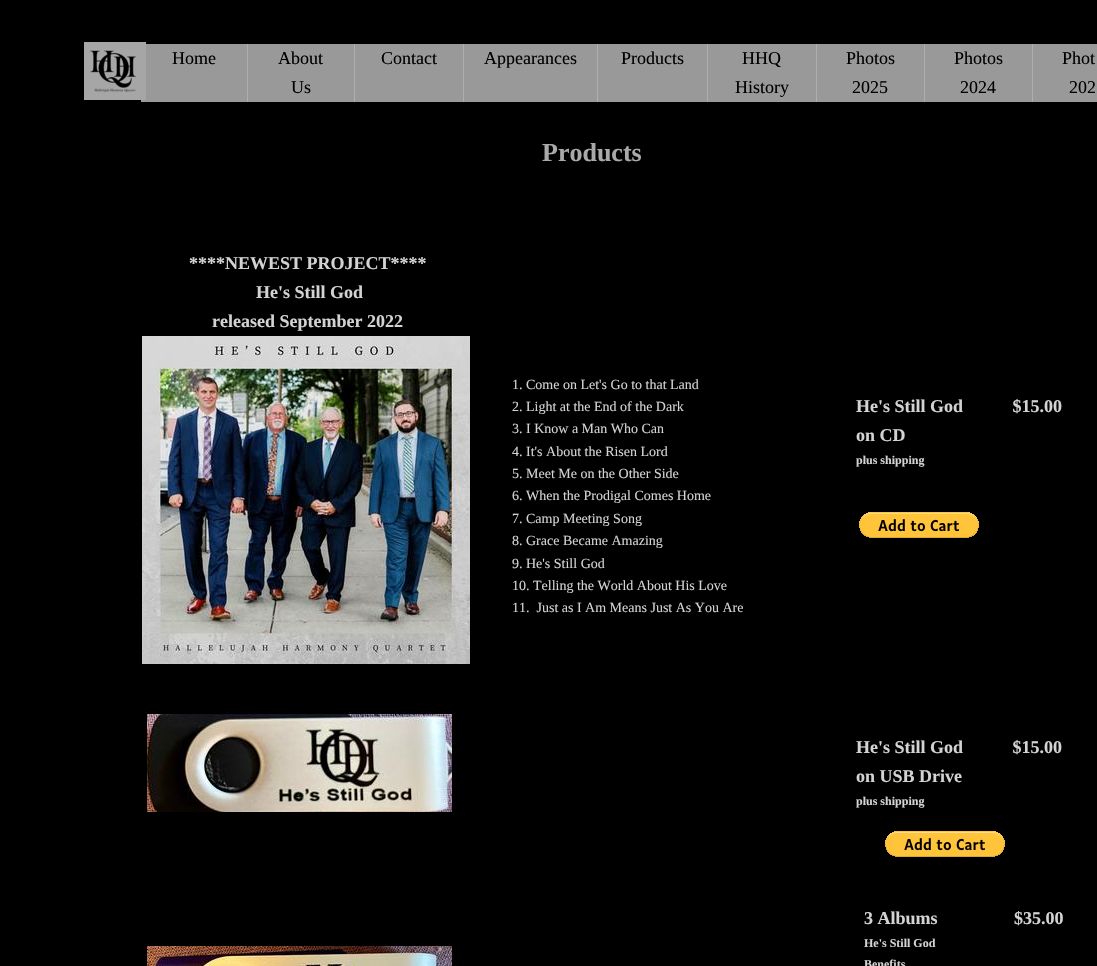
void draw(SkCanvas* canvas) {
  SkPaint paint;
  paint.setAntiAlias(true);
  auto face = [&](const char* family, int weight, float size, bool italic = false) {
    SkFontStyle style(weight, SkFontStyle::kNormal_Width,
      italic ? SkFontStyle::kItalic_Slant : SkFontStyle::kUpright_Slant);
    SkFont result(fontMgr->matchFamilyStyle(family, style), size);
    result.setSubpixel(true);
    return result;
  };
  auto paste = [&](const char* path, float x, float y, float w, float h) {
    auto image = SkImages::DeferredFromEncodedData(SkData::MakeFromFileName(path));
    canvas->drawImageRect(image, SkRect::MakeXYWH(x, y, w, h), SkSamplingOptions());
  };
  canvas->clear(0xff000000);
  paint.setColor(0xff999999);
  canvas->drawRect(SkRect::MakeXYWH(141, 44, 106, 58), paint);
  paste("img/1.png", 84, 42, 62, 58);
  {
    const struct { float x, y, w, h; SkColor color; } items[] = {
      {247, 44, 1, 58, 0xffaeaeae},
      {248, 44, 106, 58, 0xff999999},
      {354, 44, 1, 58, 0xffaeaeae},
      {355, 44, 108, 58, 0xff999999},
      {463, 44, 1, 58, 0xffaeaeae},
      {464, 44, 133, 58, 0xff999999},
      {597, 44, 1, 58, 0xffaeaeae},
      {598, 44, 109, 58, 0xff999999},
      {707, 44, 1, 58, 0xffaeaeae},
      {708, 44, 108, 58, 0xff999999},
      {816, 44, 1, 58, 0xffaeaeae},
      {817, 44, 107, 58, 0xff999999},
      {924, 44, 1, 58, 0xffaeaeae},
      {925, 44, 107, 58, 0xff999999},
      {1032, 44, 1, 58, 0xffaeaeae},
      {1033, 44, 64, 58, 0xff999999},
    };
    for (auto [x, y, w, h, color] : items) {
      paint.setColor(color);
      canvas->drawRect(SkRect::MakeXYWH(x, y, w, h), paint);
    }
  }
  paste("img/2.png", 142, 336, 328, 328);
  paste("img/3.png", 859, 512, 120, 26);
  paste("img/4.png", 147, 714, 305, 98);
  paste("img/3.png", 885, 831, 120, 26);
  paste("img/5.png", 147, 946, 305, 20);
  auto f0 = face("Liberation Serif", 400, 18);
  paint.setColor(0xff000000);
  {
    const struct { const char* s; float x, y; } items[] = {
      {"Home", 172, 64},
      {"About", 278, 64},
      {"Us", 291, 93},
      {"Contact", 381, 64},
      {"Appearances", 484, 64},
      {"Products", 621, 64},
      {"HHQ", 742, 64},
      {"History", 735, 93},
      {"Photos", 846, 64},
      {"2025", 852, 93},
      {"Photos", 954, 64},
      {"2024", 960, 93},
      {"Phot", 1062, 64},
      {"202", 1069, 93},
    };
    for (auto [s, x, y] : items) {
      canvas->drawString(s, x, y, f0, paint);
    }
  }
  auto f1 = face("Liberation Serif", 700, 26);
  paint.setColor(0xffa9a9a9);
  canvas->drawString("Products", 542, 161, f1, paint);
  auto f2 = face("Liberation Serif", 700, 18);
  paint.setColor(0xffd3d3d3);
  {
    const struct { const char* s; float x, y; } items[] = {
      {"****NEWEST PROJECT****", 189, 269},
      {"He's Still God", 256, 298},
      {"released September 2022", 212, 327},
    };
    for (auto [s, x, y] : items) {
      canvas->drawString(s, x, y, f2, paint);
    }
  }
  auto f3 = face("Liberation Serif", 400, 14);
  {
    const struct { const char* s; float x, y; } items[] = {
      {"1. Come on Let's Go to that Land", 512, 389},
      {"2. Light at the End of the Dark", 512, 411},
      {"3. I Know a Man Who Can", 512, 433},
      {"4. It's About the Risen Lord", 512, 456},
      {"5. Meet Me on the Other Side", 512, 478},
      {"6. When the Prodigal Comes Home", 512, 500},
      {"7. Camp Meeting Song", 512, 523},
      {"8. Grace Became Amazing", 512, 545},
      {"9. He's Still God", 512, 568},
      {"10. Telling the World About His Love", 512, 590},
      {"11.  Just as I Am Means Just As You Are", 512, 612},
    };
    for (auto [s, x, y] : items) {
      canvas->drawString(s, x, y, f3, paint);
    }
  }
  canvas->drawString("He's Still God           $15.00", 856, 412, f2, paint);
  canvas->drawString("on CD", 856, 441, f2, paint);
  auto f4 = face("Liberation Serif", 700, 12);
  canvas->drawString("plus shipping", 856, 464, f4, paint);
  canvas->drawString("He's Still God           $15.00", 856, 753, f2, paint);
  canvas->drawString("on USB Drive", 856, 782, f2, paint);
  canvas->drawString("plus shipping", 856, 805, f4, paint);
  canvas->drawString("3 Albums                 $35.00", 864, 924, f2, paint);
  canvas->drawString("He's Still God", 864, 947, f4, paint);
  canvas->drawString("Benefits", 864, 968, f4, paint);
}
